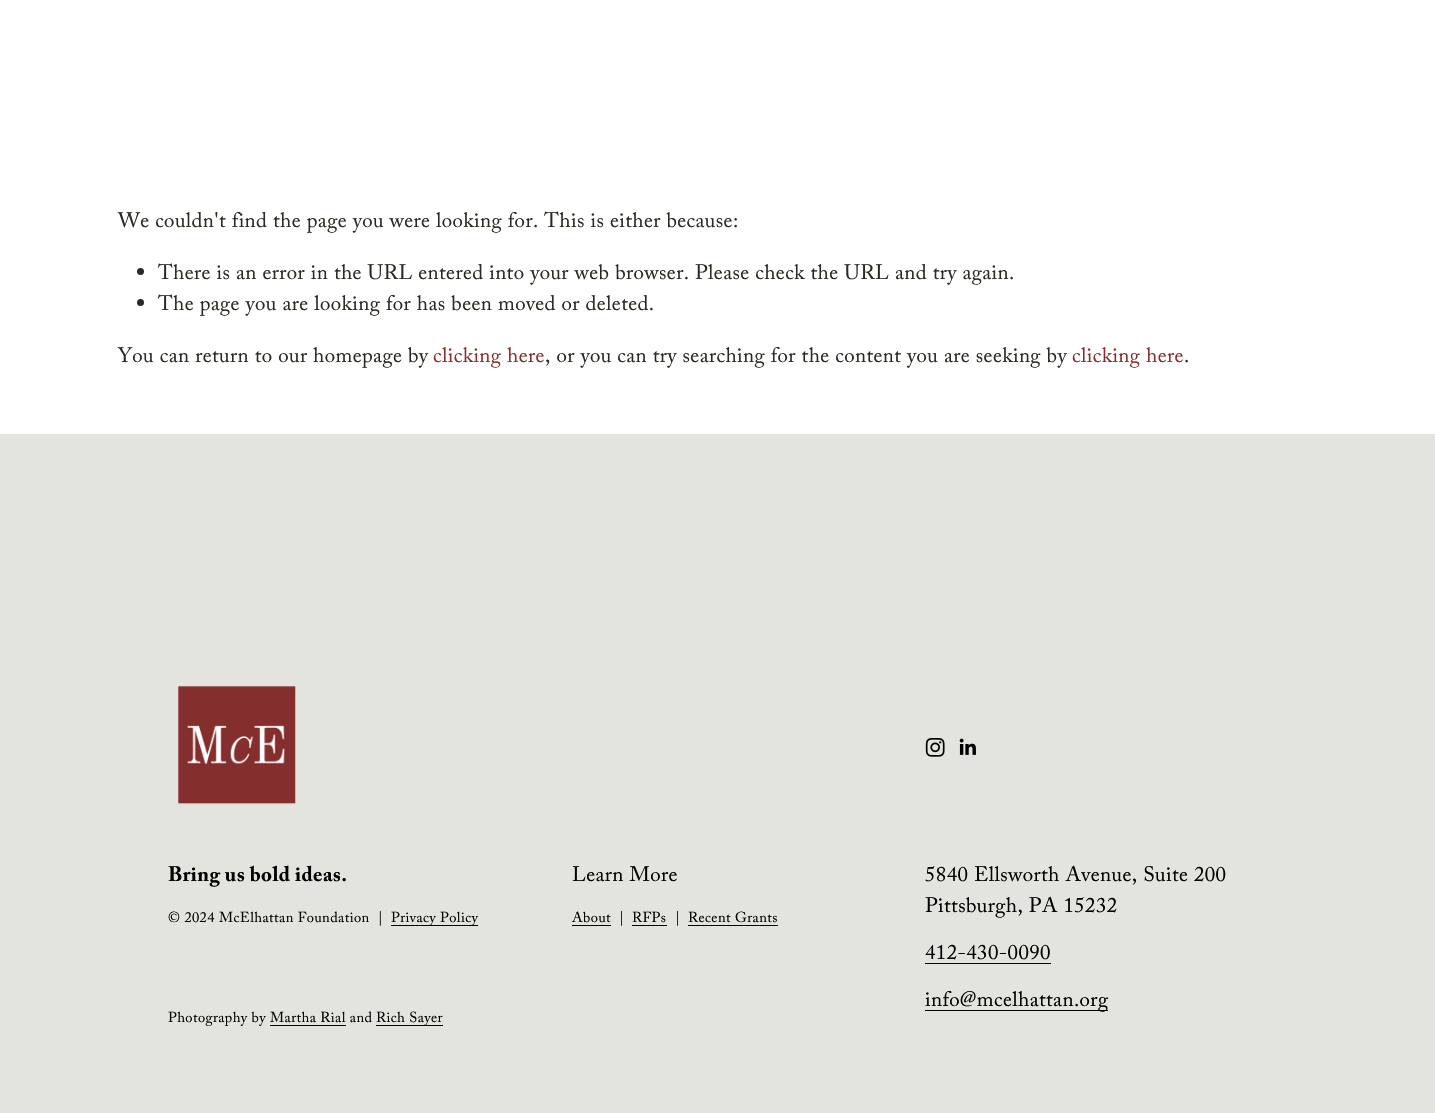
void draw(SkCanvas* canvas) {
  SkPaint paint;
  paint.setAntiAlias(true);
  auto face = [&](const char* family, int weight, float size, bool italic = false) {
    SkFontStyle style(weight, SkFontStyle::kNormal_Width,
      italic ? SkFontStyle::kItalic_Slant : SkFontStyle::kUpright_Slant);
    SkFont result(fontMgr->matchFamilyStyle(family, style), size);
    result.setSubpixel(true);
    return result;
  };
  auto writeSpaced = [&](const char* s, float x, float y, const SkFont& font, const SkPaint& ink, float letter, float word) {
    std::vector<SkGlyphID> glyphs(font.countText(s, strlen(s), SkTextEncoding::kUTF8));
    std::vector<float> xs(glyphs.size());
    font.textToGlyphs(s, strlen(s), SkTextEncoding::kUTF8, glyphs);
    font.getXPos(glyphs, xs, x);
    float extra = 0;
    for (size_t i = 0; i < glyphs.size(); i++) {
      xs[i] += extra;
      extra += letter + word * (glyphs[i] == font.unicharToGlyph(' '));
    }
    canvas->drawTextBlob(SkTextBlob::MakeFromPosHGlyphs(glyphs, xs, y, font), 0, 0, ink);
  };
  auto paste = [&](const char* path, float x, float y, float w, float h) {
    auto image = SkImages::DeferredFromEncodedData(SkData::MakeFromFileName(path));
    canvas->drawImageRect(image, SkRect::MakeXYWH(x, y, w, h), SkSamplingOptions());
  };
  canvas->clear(0xffffffff);
  paint.setColor(0xff282b21);
  canvas->drawCircle(140.5f, 271.5f, 3.5f, paint);
  canvas->drawCircle(140.5f, 302.5f, 3.5f, paint);
  paint.setColor(0xffe4e4df);
  canvas->drawRect(SkRect::MakeXYWH(0, 434, 1435, 679), paint);
  paste("img/1.png", 178, 686, 118, 119);
  paste("img/2.png", 925, 738, 20, 19);
  paste("img/3.png", 959, 738, 17, 17);
  {
    const struct { float x, y, w, h; SkColor color; } items[] = {
      {391, 925, 87, 1, 0xff000000},
      {572, 925, 39, 1, 0xff000000},
      {632, 925, 35, 1, 0xff000000},
      {688, 925, 90, 1, 0xff000000},
      {925, 963, 126, 1, 0xff000000},
      {925, 1010, 183, 1, 0xff000000},
      {376, 1025, 67, 1, 0xff000000},
      {270, 1025, 76, 1, 0xff000000},
    };
    for (auto [x, y, w, h, color] : items) {
      paint.setColor(color);
      canvas->drawRect(SkRect::MakeXYWH(x, y, w, h), paint);
    }
  }
  auto f0 = face("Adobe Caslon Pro", 400, 20.8f);
  paint.setColor(0xff282b21);
  {
    const struct { const char* s; float x, y; } items[] = {
      {"We couldn't find the page you were looking for. This is either because:", 118, 227},
      {"There is an error in the URL entered into your web browser. Please check the URL and try again.", 158, 279},
      {"The page you are looking for has been moved or deleted.", 158, 310},
      {"You can return to our homepage by", 118, 362},
    };
    for (auto [s, x, y] : items) {
      writeSpaced(s, x, y, f0, paint, 0.42f, 0);
    }
  }
  paint.setColor(0xff852e2e);
  writeSpaced("clicking here", 433, 362, f0, paint, 0.42f, 0);
  paint.setColor(0xff282b21);
  writeSpaced(", or you can try searching for the content you are seeking by", 545, 362, f0, paint, 0.42f, 0);
  paint.setColor(0xff852e2e);
  writeSpaced("clicking here", 1072, 362, f0, paint, 0.42f, 0);
  paint.setColor(0xff282b21);
  writeSpaced(".", 1184, 362, f0, paint, 0.42f, 0);
  auto f1 = face("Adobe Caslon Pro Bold", 700, 20.8f);
  paint.setColor(0xff000000);
  writeSpaced("Bring us bold ideas.", 168, 881, f1, paint, 0.42f, 0);
  auto f2 = face("Adobe Caslon Pro", 400, 14.4f);
  writeSpaced("© 2024 McElhattan Foundation  |", 168, 922, f2, paint, 0.42f, 0);
  writeSpaced("Privacy Policy", 391, 922, f2, paint, 0.42f, 0);
  writeSpaced("Learn More", 572, 881, f0, paint, 0.42f, 0);
  {
    const struct { const char* s; float x, y; } items[] = {
      {"About", 572, 922},
      {"|", 619, 922},
      {"RFPs", 632, 922},
      {"|", 675, 922},
      {"Recent Grants", 688, 922},
    };
    for (auto [s, x, y] : items) {
      writeSpaced(s, x, y, f2, paint, 0.42f, 0);
    }
  }
  {
    const struct { const char* s; float x, y; } items[] = {
      {"5840 Ellsworth Avenue, Suite 200", 925, 881},
      {"Pittsburgh, PA 15232", 925, 912},
      {"412-430-0090", 925, 959},
      {"info@mcelhattan.org", 925, 1006},
    };
    for (auto [s, x, y] : items) {
      writeSpaced(s, x, y, f0, paint, 0.42f, 0);
    }
  }
  writeSpaced("Photography by Martha Rial and", 168, 1022, f2, paint, 0.42f, 0);
  writeSpaced("Rich Sayer", 376, 1022, f2, paint, 0.42f, 0);
}
